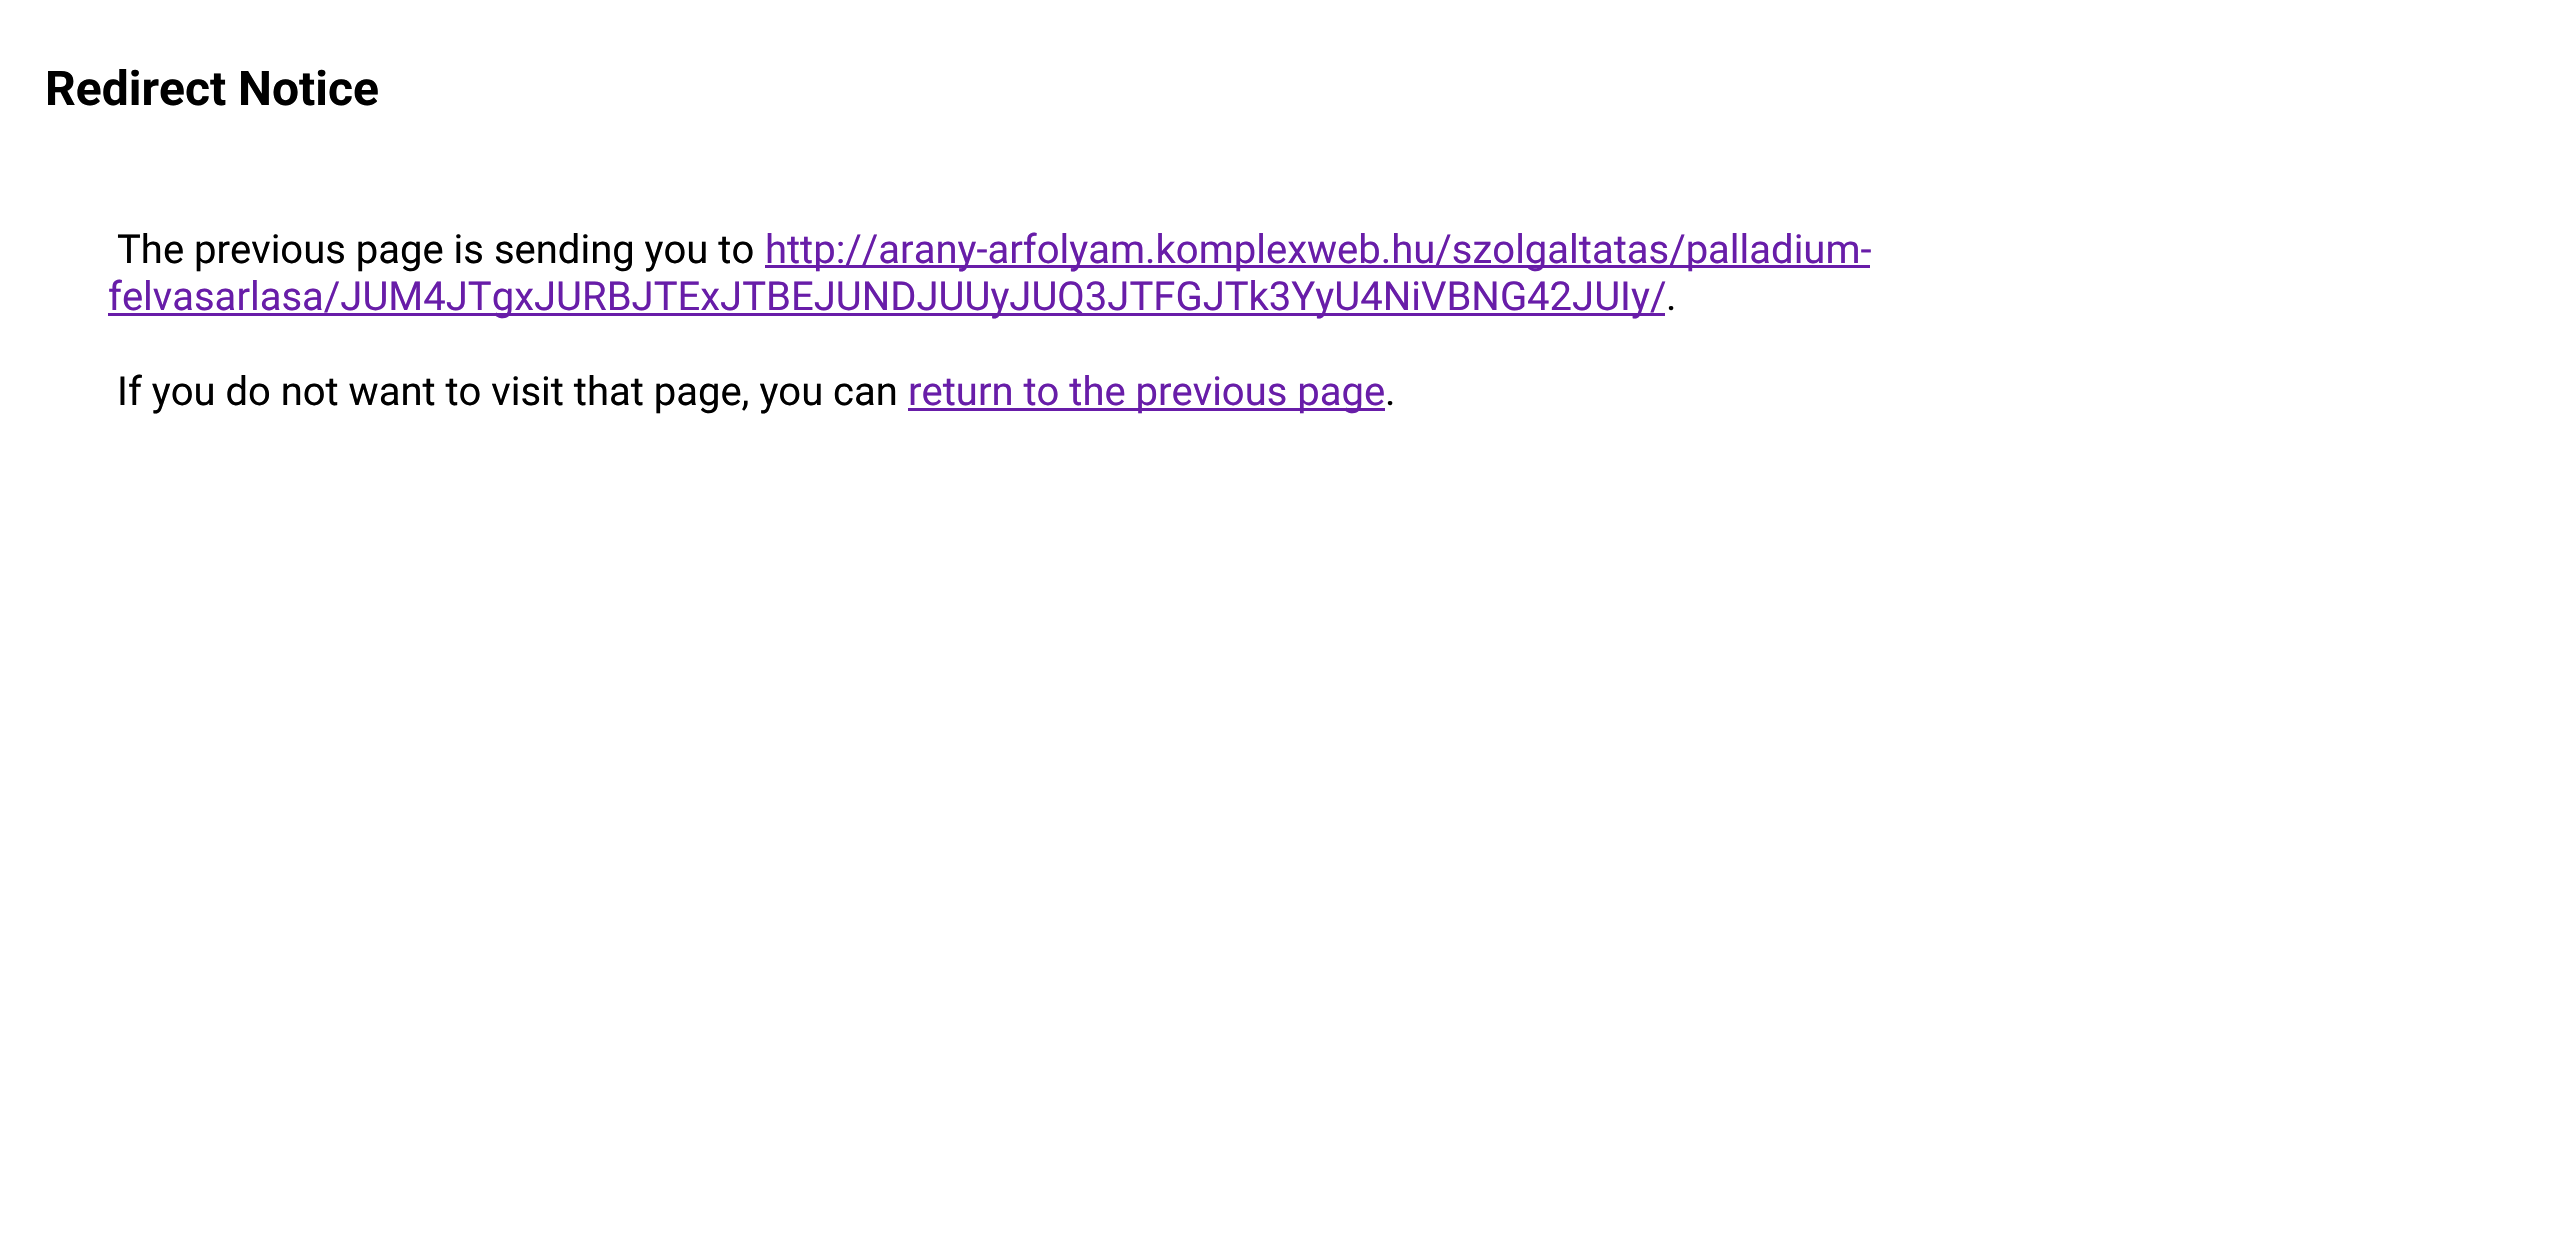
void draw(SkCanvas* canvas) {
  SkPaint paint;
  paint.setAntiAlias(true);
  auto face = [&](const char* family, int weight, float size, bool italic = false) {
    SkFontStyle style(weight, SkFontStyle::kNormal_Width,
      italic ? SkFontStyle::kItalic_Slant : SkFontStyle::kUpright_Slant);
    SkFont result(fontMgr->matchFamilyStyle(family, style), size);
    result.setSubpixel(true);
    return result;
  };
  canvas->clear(0xffffffff);
  {
    const struct { float x, y, w, h; SkColor color; } items[] = {
      {765, 265, 1105, 3, 0xff681da8},
      {108, 313, 1557, 3, 0xff681da8},
      {908, 408, 477, 3, 0xff681da8},
    };
    for (auto [x, y, w, h, color] : items) {
      paint.setColor(color);
      canvas->drawRect(SkRect::MakeXYWH(x, y, w, h), paint);
    }
  }
  auto f0 = face("Roboto", 700, 48);
  paint.setColor(0xff000000);
  canvas->drawString("Redirect Notice", 45, 105, f0, paint);
  auto f1 = face("Roboto", 400, 40);
  canvas->drawString("The previous page is sending you to", 117, 263, f1, paint);
  paint.setColor(0xff681da8);
  canvas->drawString("http://arany-arfolyam.komplexweb.hu/szolgaltatas/palladium-", 765, 263, f1, paint);
  canvas->drawString("felvasarlasa/JUM4JTgxJURBJTExJTBEJUNDJUUyJUQ3JTFGJTk3YyU4NiVBNG42JUIy/", 108, 310, f1, paint);
  paint.setColor(0xff000000);
  canvas->drawString(".", 1666, 310, f1, paint);
  canvas->drawString("If you do not want to visit that page, you can", 117, 405, f1, paint);
  paint.setColor(0xff681da8);
  canvas->drawString("return to the previous page", 908, 405, f1, paint);
  paint.setColor(0xff000000);
  canvas->drawString(".", 1385, 405, f1, paint);
}
